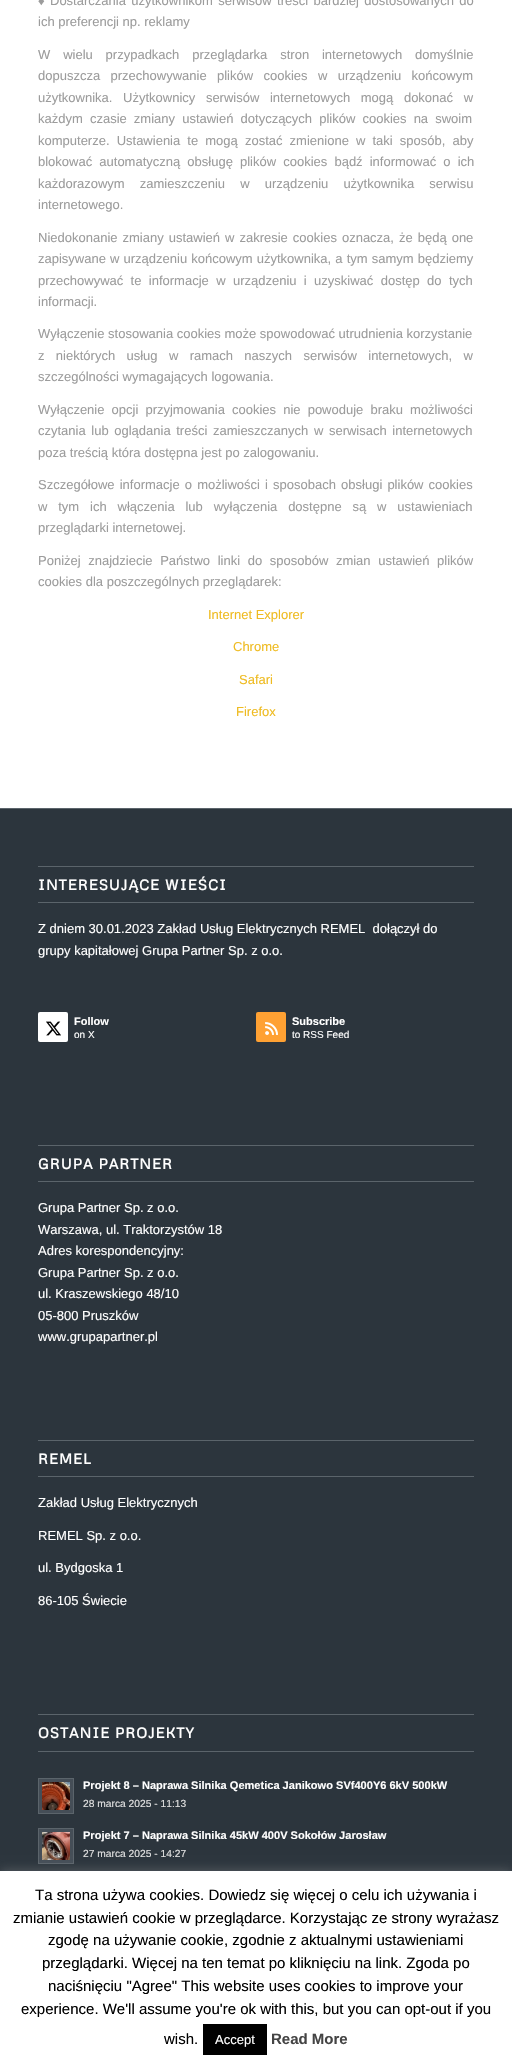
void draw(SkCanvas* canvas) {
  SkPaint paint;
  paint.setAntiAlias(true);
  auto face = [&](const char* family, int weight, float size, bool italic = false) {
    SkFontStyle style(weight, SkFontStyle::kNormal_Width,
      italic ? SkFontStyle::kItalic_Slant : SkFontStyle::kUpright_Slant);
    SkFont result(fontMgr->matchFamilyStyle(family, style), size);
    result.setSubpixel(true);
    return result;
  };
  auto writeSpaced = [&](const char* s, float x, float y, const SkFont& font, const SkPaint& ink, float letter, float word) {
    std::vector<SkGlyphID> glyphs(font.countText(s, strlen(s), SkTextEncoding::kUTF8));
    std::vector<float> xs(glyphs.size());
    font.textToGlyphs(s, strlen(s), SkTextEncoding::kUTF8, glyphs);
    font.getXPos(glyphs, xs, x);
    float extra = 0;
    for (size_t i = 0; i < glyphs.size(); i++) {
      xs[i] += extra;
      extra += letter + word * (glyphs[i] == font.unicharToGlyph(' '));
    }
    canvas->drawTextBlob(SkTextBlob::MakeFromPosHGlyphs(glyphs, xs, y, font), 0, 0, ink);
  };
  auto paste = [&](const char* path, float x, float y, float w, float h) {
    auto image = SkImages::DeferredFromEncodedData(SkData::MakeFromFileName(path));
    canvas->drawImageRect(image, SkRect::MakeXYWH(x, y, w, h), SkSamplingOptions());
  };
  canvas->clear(0xffffffff);
  {
    const struct { float x, y, w, h; SkColor color; } items[] = {
      {0, 809, 512, 1062, 0xff2c353d},
      {0, 808, 512, 1, 0xff5b646b},
      {38, 866, 436, 1, 0xff5b646b},
      {38, 902, 436, 1, 0xff5b646b},
    };
    for (auto [x, y, w, h, color] : items) {
      paint.setColor(color);
      canvas->drawRect(SkRect::MakeXYWH(x, y, w, h), paint);
    }
  }
  paint.setColor(0xffffffff);
  canvas->drawRoundRect(SkRect::MakeXYWH(38, 1012, 30, 30), 2, 2, paint);
  paste("img/1.png", 46, 1021, 15, 15);
  paint.setColor(0xffffa133);
  canvas->drawRoundRect(SkRect::MakeXYWH(256, 1012, 30, 30), 2, 2, paint);
  paste("img/2.png", 265, 1022, 13, 13);
  {
    const struct { float x, y, w, h; SkColor color; } items[] = {
      {38, 1145, 436, 1, 0xff5b646b},
      {38, 1181, 436, 1, 0xff5b646b},
      {38, 1440, 436, 1, 0xff5b646b},
      {38, 1476, 436, 1, 0xff5b646b},
      {38, 1714, 436, 1, 0xff5b646b},
      {38, 1751, 436, 1, 0xff5b646b},
    };
    for (auto [x, y, w, h, color] : items) {
      paint.setColor(color);
      canvas->drawRect(SkRect::MakeXYWH(x, y, w, h), paint);
    }
  }
  paint.setColor(0xff454e57);
  canvas->drawRect(SkRect::MakeXYWH(38.5f, 1778.5f, 35, 35), paint);
  paint.setStroke(true);
  paint.setStrokeWidth(1);
  paint.setColor(0xff5b646b);
  canvas->drawRect(SkRect::MakeXYWH(38.5f, 1778.5f, 35, 35), paint);
  paste("img/3.png", 42, 1782, 28, 28);
  paint.setStroke(false);
  paint.setColor(0xff454e57);
  canvas->drawRect(SkRect::MakeXYWH(38.5f, 1828.5f, 35, 35), paint);
  paint.setStroke(true);
  paint.setColor(0xff5b646b);
  canvas->drawRect(SkRect::MakeXYWH(38.5f, 1828.5f, 35, 35), paint);
  paste("img/4.png", 42, 1832, 28, 28);
  paint.setStroke(false);
  paint.setColor(0x4dacabab);
  paint.setMaskFilter(SkMaskFilter::MakeBlur(kNormal_SkBlurStyle, 5));
  canvas->drawRect(SkRect::MakeXYWH(0, 1870, 512, 196), paint);
  paint.setMaskFilter(nullptr);
  paint.setColor(0xffffffff);
  canvas->drawRect(SkRect::MakeXYWH(0, 1871, 512, 196), paint);
  paint.setColor(0xff000000);
  canvas->drawRect(SkRect::MakeXYWH(203, 2024, 64, 31), paint);
  auto f0 = face("Liberation Sans", 400, 13);
  paint.setColor(0xff9c9c9c);
  writeSpaced("♦ Dostarczania użytkownikom serwisów treści bardziej dostosowanych do", 38, 5, f0, paint, 0, 1.75f);
  canvas->drawString("ich preferencji np. reklamy", 38, 26, f0, paint);
  writeSpaced("W wielu przypadkach przeglądarka stron internetowych domyślnie", 38, 59, f0, paint, 0, 9.25f);
  writeSpaced("dopuszcza przechowywanie plików cookies w urządzeniu końcowym", 38, 80, f0, paint, 0, 6.75f);
  writeSpaced("użytkownika. Użytkownicy serwisów internetowych mogą dokonać w", 38, 102, f0, paint, 0, 7);
  {
    const struct { const char* s; float x, y; } items[] = {
      {"każdym czasie zmiany ustawień dotyczących plików cookies na swoim", 38, 123},
      {"komputerze. Ustawienia te mogą zostać zmienione w taki sposób, aby", 38, 145},
      {"blokować automatyczną obsługę plików cookies bądź informować o ich", 38, 166},
    };
    for (auto [s, x, y] : items) {
      writeSpaced(s, x, y, f0, paint, 0, 3.5f);
    }
  }
  writeSpaced("każdorazowym zamieszczeniu w urządzeniu użytkownika serwisu", 38, 188, f0, paint, 0, 11.5f);
  canvas->drawString("internetowego.", 38, 209, f0, paint);
  writeSpaced("Niedokonanie zmiany ustawień w zakresie cookies oznacza, że będą one", 38, 242, f0, paint, 0, 1.4f);
  writeSpaced("zapisywane w urządzeniu końcowym użytkownika, a tym samym będziemy", 38, 263, f0, paint, 0, 0.5f);
  writeSpaced("przechowywać te informacje w urządzeniu i uzyskiwać dostęp do tych", 38, 285, f0, paint, 0, 3.75f);
  canvas->drawString("informacji.", 38, 306, f0, paint);
  canvas->drawString("Wyłączenie stosowania cookies może spowodować utrudnienia korzystanie", 38, 338, f0, paint);
  writeSpaced("z niektórych usług w ramach naszych serwisów internetowych, w", 38, 360, f0, paint, 0, 7.75f);
  canvas->drawString("szczególności wymagających logowania.", 38, 381, f0, paint);
  writeSpaced("Wyłączenie opcji przyjmowania cookies nie powoduje braku możliwości", 38, 414, f0, paint, 0, 3.5f);
  writeSpaced("czytania lub oglądania treści zamieszczanych w serwisach internetowych", 38, 435, f0, paint, 0, 2);
  canvas->drawString("poza treścią która dostępna jest po zalogowaniu.", 38, 457, f0, paint);
  writeSpaced("Szczegółowe informacje o możliwości i sposobach obsługi plików cookies", 38, 489, f0, paint, 0, 1.5f);
  writeSpaced("w tym ich włączenia lub wyłączenia dostępne są w ustawieniach", 38, 511, f0, paint, 0, 7.25f);
  canvas->drawString("przeglądarki internetowej.", 38, 532, f0, paint);
  writeSpaced("Poniżej znajdziecie Państwo linki do sposobów zmian ustawień plików", 38, 565, f0, paint, 0, 4);
  canvas->drawString("cookies dla poszczególnych przeglądarek:", 38, 586, f0, paint);
  paint.setColor(0xffefbb20);
  {
    const struct { const char* s; float x, y; } items[] = {
      {"Internet Explorer", 208, 619},
      {"Chrome", 233, 651},
      {"Safari", 239, 684},
      {"Firefox", 236, 716},
    };
    for (auto [s, x, y] : items) {
      canvas->drawString(s, x, y, f0, paint);
    }
  }
  auto f1 = face("Metrophobic", 700, 14.25f);
  paint.setColor(0xffffffff);
  writeSpaced("INTERESUJĄCE WIEŚCI", 38, 890, f1, paint, 1, 0);
  canvas->drawString("Z dniem 30.01.2023 Zakład Usług Elektrycznych REMEL  dołączył do", 38, 933, f0, paint);
  canvas->drawString("grupy kapitałowej Grupa Partner Sp. z o.o.", 38, 955, f0, paint);
  auto f2 = face("Liberation Sans", 700, 11);
  canvas->drawString("Follow", 74, 1025, f2, paint);
  auto f3 = face("Liberation Sans", 400, 10);
  canvas->drawString("on X", 74, 1038, f3, paint);
  canvas->drawString("Subscribe", 292, 1025, f2, paint);
  canvas->drawString("to RSS Feed", 292, 1038, f3, paint);
  writeSpaced("GRUPA PARTNER", 38, 1169, f1, paint, 1, 0);
  {
    const struct { const char* s; float x, y; } items[] = {
      {"Grupa Partner Sp. z o.o.", 38, 1212},
      {"Warszawa, ul. Traktorzystów 18", 38, 1234},
      {"Adres korespondencyjny:", 38, 1255},
      {"Grupa Partner Sp. z o.o.", 38, 1277},
      {"ul. Kraszewskiego 48/10", 38, 1298},
      {"05-800 Pruszków", 38, 1320},
      {"www.grupapartner.pl", 38, 1341},
    };
    for (auto [s, x, y] : items) {
      canvas->drawString(s, x, y, f0, paint);
    }
  }
  writeSpaced("REMEL", 38, 1464, f1, paint, 1, 0);
  {
    const struct { const char* s; float x, y; } items[] = {
      {"Zakład Usług Elektrycznych", 38, 1507},
      {"REMEL Sp. z o.o.", 38, 1540},
      {"ul. Bydgoska 1", 38, 1572},
      {"86-105 Świecie", 38, 1605},
    };
    for (auto [s, x, y] : items) {
      canvas->drawString(s, x, y, f0, paint);
    }
  }
  writeSpaced("OSTANIE PROJEKTY", 38, 1738, f1, paint, 1, 0);
  auto f4 = face("Liberation Sans", 700, 11.05f);
  canvas->drawString("Projekt 8 – Naprawa Silnika Qemetica Janikowo SVf400Y6 6kV 500kW", 83, 1789, f4, paint);
  auto f5 = face("Liberation Sans", 400, 10.25f);
  paint.setColor(0xffe1e1e1);
  canvas->drawString("28 marca 2025 - 11:13", 83, 1807, f5, paint);
  paint.setColor(0xffffffff);
  canvas->drawString("Projekt 7 – Naprawa Silnika 45kW 400V Sokołów Jarosław", 83, 1839, f4, paint);
  paint.setColor(0xffe1e1e1);
  canvas->drawString("27 marca 2025 - 14:27", 83, 1857, f5, paint);
  auto f6 = face("Liberation Sans", 400, 15);
  paint.setColor(0xff000000);
  {
    const struct { const char* s; float x, y; } items[] = {
      {"Ta strona używa cookies. Dowiedz się więcej o celu ich używania i", 35, 1900},
      {"zmianie ustawień cookie w przeglądarce. Korzystając ze strony wyrażasz", 13, 1923},
      {"zgodę na używanie cookie, zgodnie z aktualnymi ustawieniami", 48, 1945},
      {"przeglądarki. Więcej na ten temat po kliknięciu na link. Zgoda po", 42, 1968},
      {"naciśnięciu \"Agree\" This website uses cookies to improve your", 48, 1991},
      {"experience. We'll assume you're ok with this, but you can opt-out if you", 21, 2014},
      {"wish.", 164, 2044},
    };
    for (auto [s, x, y] : items) {
      canvas->drawString(s, x, y, f6, paint);
    }
  }
  paint.setColor(0xffffffff);
  canvas->drawString("Accept", 215, 2044, f0, paint);
  auto f7 = face("Liberation Sans", 700, 15);
  paint.setColor(0xff444444);
  canvas->drawString("Read More", 271, 2044, f7, paint);
}
